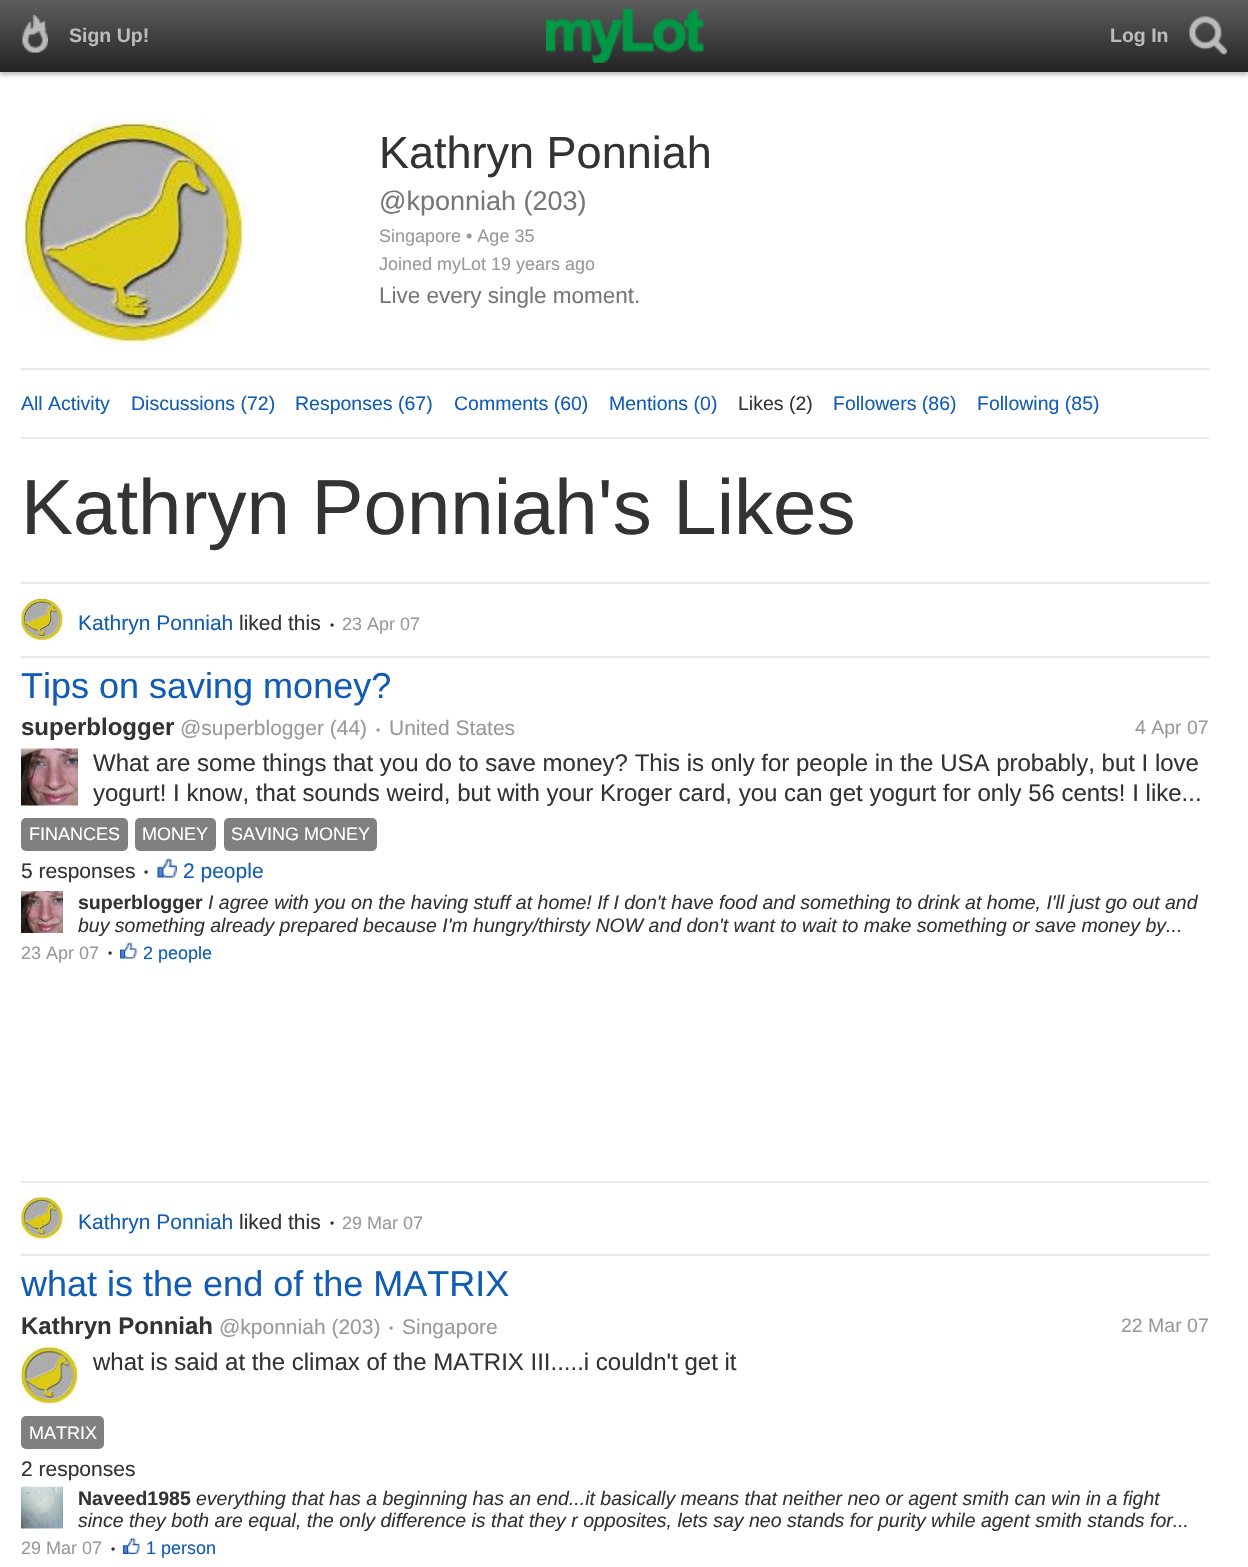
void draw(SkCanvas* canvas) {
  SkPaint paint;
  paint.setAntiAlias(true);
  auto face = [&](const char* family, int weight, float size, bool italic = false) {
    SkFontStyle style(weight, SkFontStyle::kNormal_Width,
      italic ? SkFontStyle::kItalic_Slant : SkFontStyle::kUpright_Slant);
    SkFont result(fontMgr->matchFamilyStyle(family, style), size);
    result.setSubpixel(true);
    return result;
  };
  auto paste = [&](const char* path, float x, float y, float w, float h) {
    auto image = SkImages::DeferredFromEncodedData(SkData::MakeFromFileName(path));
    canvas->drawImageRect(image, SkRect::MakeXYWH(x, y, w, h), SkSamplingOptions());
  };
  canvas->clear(0xffffffff);
  paint.setColor(0x40000000);
  paint.setMaskFilter(SkMaskFilter::MakeBlur(kNormal_SkBlurStyle, 2));
  canvas->drawRect(SkRect::MakeXYWH(0, 3, 1248, 72), paint);
  paint.setMaskFilter(nullptr);
  {
    const SkColor colors[] = {0xff5e5e5e, 0xff232323};
    const float stops[] = {0, 1};
    const SkPoint ends[] = {{624, 0}, {624, 72}};
    paint.setShader(SkGradientShader::MakeLinear(ends, colors, stops, 2, SkTileMode::kClamp));
    paint.setAlpha(255);
  }
  canvas->drawRect(SkRect::MakeXYWH(0, 0, 1248, 72), paint);
  paste("img/1.png", 22, 15, 26, 38);
  paste("img/2.png", 546, 9, 158, 54);
  paste("img/3.png", 1189, 16, 38, 39);
  paste("img/4.png", 21, 120, 225, 225);
  paint.setShader(nullptr);
  {
    const struct { float x, y, w, h; SkColor color; } items[] = {
      {21, 368, 1188, 2, 0xffe8e8e8},
      {21, 437, 1188, 2, 0xffe8e8e8},
      {21, 582, 1188, 2, 0xffe8e8e8},
      {21, 656, 1188, 2, 0xffe8e8e8},
    };
    for (auto [x, y, w, h, color] : items) {
      paint.setColor(color);
      canvas->drawRect(SkRect::MakeXYWH(x, y, w, h), paint);
    }
  }
  paste("img/5.png", 21, 598, 42, 43);
  paste("img/6.png", 21, 748, 57, 58);
  paint.setColor(0xff808080);
  canvas->drawRoundRect(SkRect::MakeXYWH(21, 818, 107, 33), 5, 5, paint);
  canvas->drawRoundRect(SkRect::MakeXYWH(135, 818, 81, 33), 5, 5, paint);
  canvas->drawRoundRect(SkRect::MakeXYWH(224, 818, 153, 33), 5, 5, paint);
  paste("img/7.png", 157, 858, 20, 20);
  paste("img/8.png", 21, 891, 42, 42);
  paste("img/9.png", 120, 942, 17, 17);
  paint.setColor(0xffe8e8e8);
  canvas->drawRect(SkRect::MakeXYWH(21, 1181, 1188, 2), paint);
  canvas->drawRect(SkRect::MakeXYWH(21, 1254, 1188, 2), paint);
  paste("img/10.png", 21, 1197, 42, 42);
  paste("img/11.png", 21, 1347, 57, 57);
  paint.setColor(0xff808080);
  canvas->drawRoundRect(SkRect::MakeXYWH(21, 1416, 83, 33), 5, 5, paint);
  paste("img/12.png", 21, 1486, 42, 43);
  paste("img/13.png", 123, 1537, 17, 17);
  auto f0 = face("Liberation Sans", 700, 19.5f);
  paint.setColor(0xffbbbbbb);
  canvas->drawString("Sign Up!", 69, 42, f0, paint);
  canvas->drawString("Log In", 1110, 42, f0, paint);
  auto f1 = face("Liberation Sans", 400, 45);
  paint.setColor(0xff333333);
  canvas->drawString("Kathryn Ponniah", 379, 168, f1, paint);
  auto f2 = face("Liberation Sans", 400, 27);
  paint.setColor(0xff777777);
  canvas->drawString("@kponniah (203)", 379, 210, f2, paint);
  auto f3 = face("Liberation Sans", 400, 18);
  paint.setColor(0xff999999);
  canvas->drawString("Singapore • Age 35", 379, 242, f3, paint);
  canvas->drawString("Joined myLot 19 years ago", 379, 270, f3, paint);
  auto f4 = face("Liberation Sans", 400, 22.5f);
  paint.setColor(0xff777777);
  canvas->drawString("Live every single moment.", 379, 303, f4, paint);
  auto f5 = face("Liberation Sans", 400, 19.5f);
  paint.setColor(0xff105cb6);
  {
    const struct { const char* s; float x, y; } items[] = {
      {"All Activity", 21, 410},
      {"Discussions (72)", 131, 410},
      {"Responses (67)", 295, 410},
      {"Comments (60)", 454, 410},
      {"Mentions (0)", 609, 410},
    };
    for (auto [s, x, y] : items) {
      canvas->drawString(s, x, y, f5, paint);
    }
  }
  paint.setColor(0xff333333);
  canvas->drawString("Likes (2)", 738, 410, f5, paint);
  paint.setColor(0xff105cb6);
  canvas->drawString("Followers (86)", 833, 410, f5, paint);
  canvas->drawString("Following (85)", 977, 410, f5, paint);
  auto f6 = face("Liberation Sans", 400, 78);
  paint.setColor(0xff333333);
  canvas->drawString("Kathryn Ponniah's Likes", 21, 534, f6, paint);
  auto f7 = face("Liberation Sans", 400, 21);
  paint.setColor(0xff105cb6);
  canvas->drawString("Kathryn Ponniah", 78, 630, f7, paint);
  paint.setColor(0xff333333);
  canvas->drawString("liked this", 239, 630, f7, paint);
  auto f8 = face("Liberation Sans", 400, 12);
  canvas->drawString("•", 330, 629, f8, paint);
  paint.setColor(0xff999999);
  canvas->drawString("23 Apr 07", 342, 630, f3, paint);
  auto f9 = face("Liberation Sans", 400, 36);
  paint.setColor(0xff105cb6);
  canvas->drawString("Tips on saving money?", 21, 698, f9, paint);
  auto f10 = face("Liberation Sans", 700, 24);
  paint.setColor(0xff333333);
  canvas->drawString("superblogger", 21, 735, f10, paint);
  paint.setColor(0xff999999);
  canvas->drawString("@superblogger (44)", 180, 735, f7, paint);
  canvas->drawString("•", 376, 734, f8, paint);
  canvas->drawString("United States", 389, 735, f7, paint);
  canvas->drawString("4 Apr 07", 1135, 734, f5, paint);
  auto f11 = face("Liberation Sans", 400, 24);
  paint.setColor(0xff333333);
  canvas->drawString("What are some things that you do to save money? This is only for people in the USA probably, but I love", 93, 771, f11, paint);
  canvas->drawString("yogurt! I know, that sounds weird, but with your Kroger card, you can get yogurt for only 56 cents! I like...", 93, 801, f11, paint);
  paint.setColor(0xffffffff);
  {
    const struct { const char* s; float x, y; } items[] = {
      {"FINANCES", 29, 840},
      {"MONEY", 142, 840},
      {"SAVING MONEY", 231, 840},
    };
    for (auto [s, x, y] : items) {
      canvas->drawString(s, x, y, f3, paint);
    }
  }
  paint.setColor(0xff333333);
  canvas->drawString("5 responses", 21, 878, f7, paint);
  canvas->drawString("•", 144, 876, f8, paint);
  paint.setColor(0xff105cb6);
  canvas->drawString("2 people", 183, 878, f7, paint);
  paint.setColor(0xff333333);
  canvas->drawString("superblogger", 78, 909, f0, paint);
  auto f12 = face("Liberation Sans", 400, 19.5f, true);
  canvas->drawString("I agree with you on the having stuff at home! If I don't have food and something to drink at home, I'll just go out and", 208, 909, f12, paint);
  canvas->drawString("buy something already prepared because I'm hungry/thirsty NOW and don't want to wait to make something or save money by...", 78, 932, f12, paint);
  paint.setColor(0xff999999);
  canvas->drawString("23 Apr 07", 21, 959, f3, paint);
  paint.setColor(0xff333333);
  canvas->drawString("•", 108, 957, f8, paint);
  paint.setColor(0xff105cb6);
  canvas->drawString("2 people", 143, 959, f3, paint);
  canvas->drawString("Kathryn Ponniah", 78, 1229, f7, paint);
  paint.setColor(0xff333333);
  canvas->drawString("liked this", 239, 1229, f7, paint);
  canvas->drawString("•", 330, 1227, f8, paint);
  paint.setColor(0xff999999);
  canvas->drawString("29 Mar 07", 342, 1229, f3, paint);
  paint.setColor(0xff105cb6);
  canvas->drawString("what is the end of the MATRIX", 21, 1296, f9, paint);
  paint.setColor(0xff333333);
  canvas->drawString("Kathryn Ponniah", 21, 1334, f10, paint);
  paint.setColor(0xff999999);
  canvas->drawString("@kponniah (203)", 219, 1334, f7, paint);
  canvas->drawString("•", 389, 1332, f8, paint);
  canvas->drawString("Singapore", 402, 1334, f7, paint);
  canvas->drawString("22 Mar 07", 1121, 1332, f5, paint);
  paint.setColor(0xff333333);
  canvas->drawString("what is said at the climax of the MATRIX III.....i couldn't get it", 93, 1370, f11, paint);
  paint.setColor(0xffffffff);
  canvas->drawString("MATRIX", 29, 1439, f3, paint);
  paint.setColor(0xff333333);
  canvas->drawString("2 responses", 21, 1476, f7, paint);
  canvas->drawString("Naveed1985", 78, 1505, f0, paint);
  canvas->drawString("everything that has a beginning has an end...it basically means that neither neo or agent smith can win in a fight", 196, 1505, f12, paint);
  canvas->drawString("since they both are equal, the only difference is that they r opposites, lets say neo stands for purity while agent smith stands for...", 78, 1527, f12, paint);
  paint.setColor(0xff999999);
  canvas->drawString("29 Mar 07", 21, 1554, f3, paint);
  paint.setColor(0xff333333);
  canvas->drawString("•", 111, 1553, f8, paint);
  paint.setColor(0xff105cb6);
  canvas->drawString("1 person", 146, 1554, f3, paint);
}
